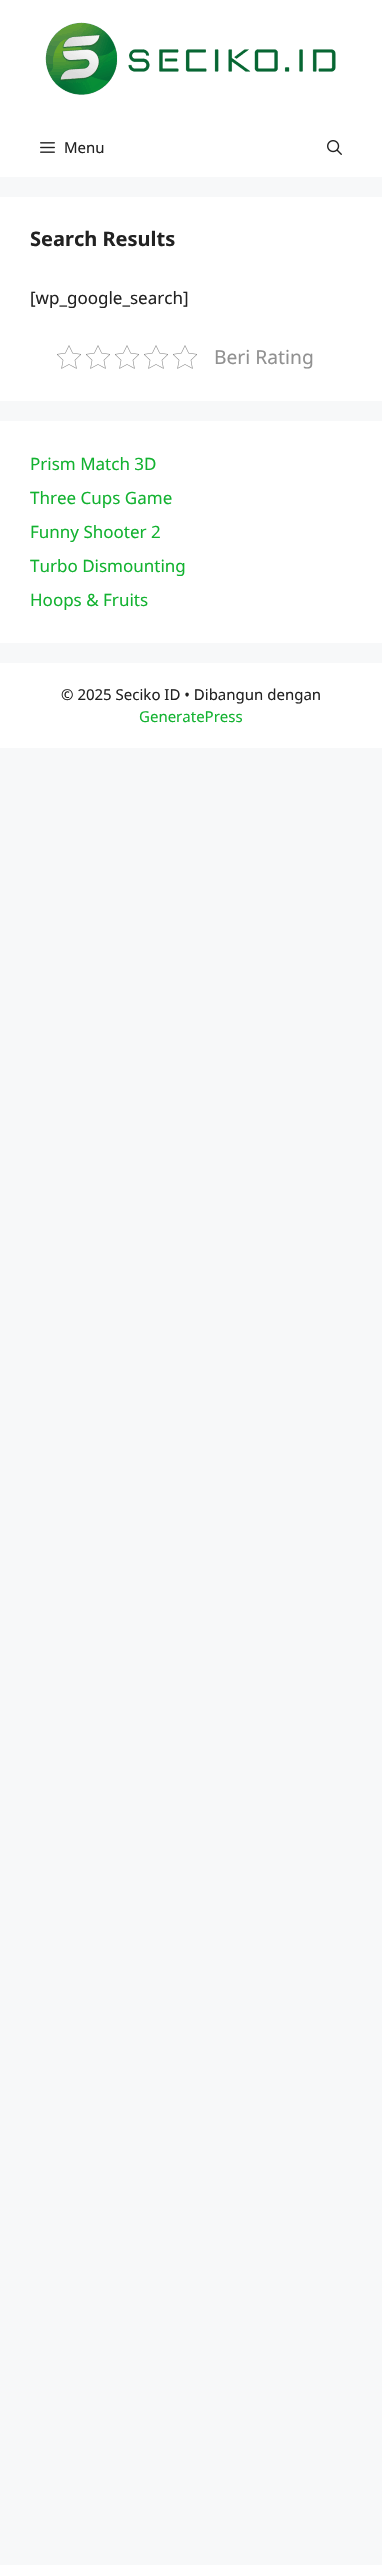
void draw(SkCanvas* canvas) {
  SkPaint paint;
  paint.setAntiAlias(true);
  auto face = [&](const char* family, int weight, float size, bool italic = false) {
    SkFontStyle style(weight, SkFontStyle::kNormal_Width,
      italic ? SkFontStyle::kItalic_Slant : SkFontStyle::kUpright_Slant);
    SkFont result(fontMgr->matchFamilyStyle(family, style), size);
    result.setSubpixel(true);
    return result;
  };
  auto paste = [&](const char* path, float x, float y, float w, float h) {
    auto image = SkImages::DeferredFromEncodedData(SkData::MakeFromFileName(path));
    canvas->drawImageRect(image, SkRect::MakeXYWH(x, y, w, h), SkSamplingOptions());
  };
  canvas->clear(0xfff7f8f9);
  paint.setColor(0xffffffff);
  canvas->drawRect(SkRect::MakeXYWH(0, 0, 382, 177), paint);
  paste("img/1.png", 45, 22, 291, 73);
  paste("img/2.png", 40, 142, 15, 11);
  paste("img/3.png", 327, 140, 15, 15);
  canvas->drawRect(SkRect::MakeXYWH(0, 197, 382, 204), paint);
  paste("img/4.png", 57, 345, 24, 24);
  paste("img/4.png", 86, 345, 24, 24);
  paste("img/4.png", 115, 345, 24, 24);
  paste("img/4.png", 144, 345, 24, 24);
  paste("img/4.png", 173, 345, 24, 24);
  canvas->drawRect(SkRect::MakeXYWH(0, 421, 382, 222), paint);
  canvas->drawRect(SkRect::MakeXYWH(0, 663, 382, 85), paint);
  auto f0 = face("Noto Sans", 400, 15);
  paint.setColor(0xff222222);
  canvas->drawString("Menu", 64, 153, f0, paint);
  auto f1 = face("Noto Sans", 700, 20);
  canvas->drawString("Search Results", 30, 246, f1, paint);
  auto f2 = face("Noto Sans", 400, 17);
  canvas->drawString("[wp_google_search]", 30, 304, f2, paint);
  auto f3 = face("Noto Sans", 400, 19.25f);
  paint.setColor(0xff919191);
  canvas->drawString("Beri Rating", 214, 364, f3, paint);
  paint.setColor(0xff12b230);
  {
    const struct { const char* s; float x, y; } items[] = {
      {"Prism Match 3D", 30, 470},
      {"Three Cups Game", 30, 504},
      {"Funny Shooter 2", 30, 538},
      {"Turbo Dismounting", 30, 572},
      {"Hoops & Fruits", 30, 606},
    };
    for (auto [s, x, y] : items) {
      canvas->drawString(s, x, y, f2, paint);
    }
  }
  paint.setColor(0xff222222);
  canvas->drawString("© 2025 Seciko ID • Dibangun dengan", 61, 700, f0, paint);
  paint.setColor(0xff12b230);
  canvas->drawString("GeneratePress", 139, 722, f0, paint);
}
